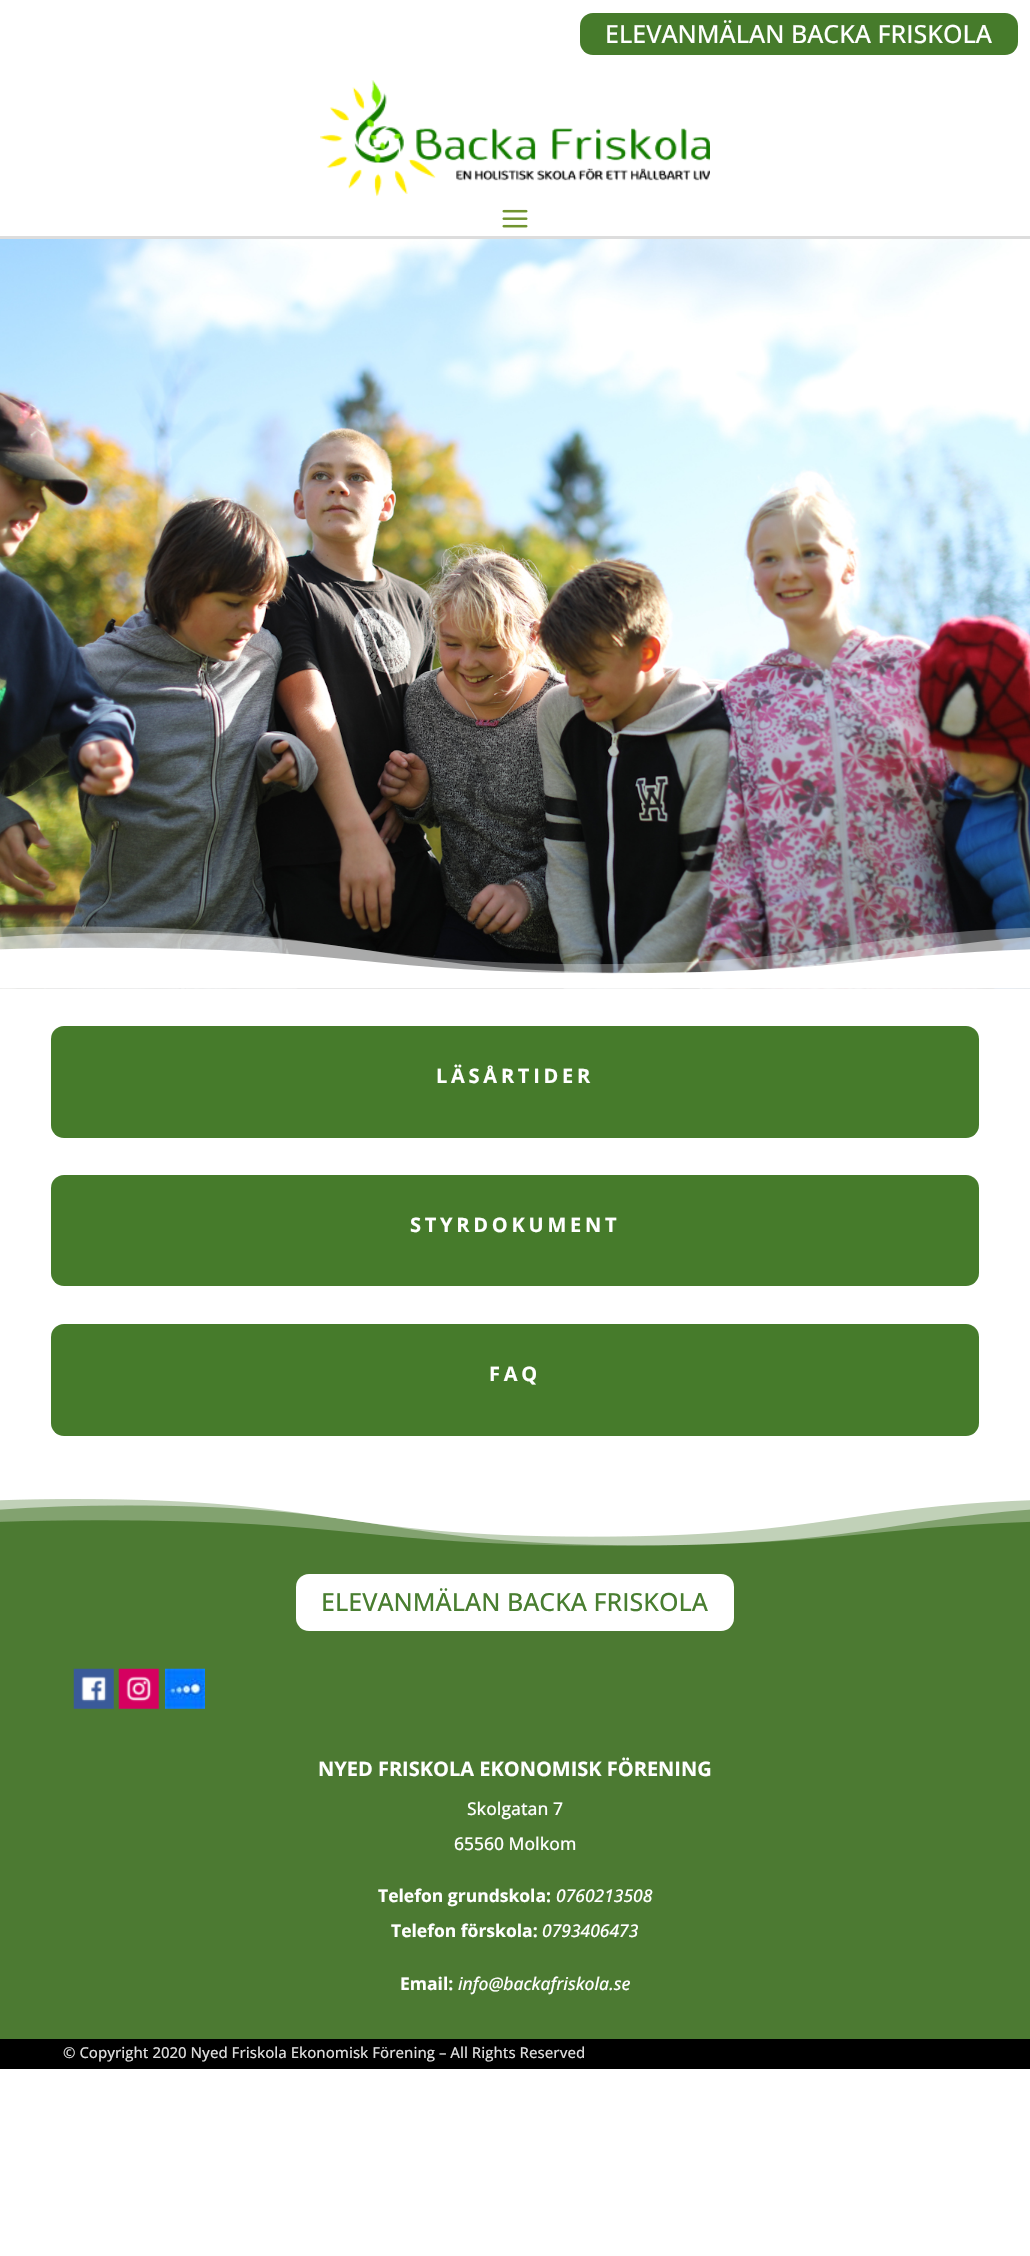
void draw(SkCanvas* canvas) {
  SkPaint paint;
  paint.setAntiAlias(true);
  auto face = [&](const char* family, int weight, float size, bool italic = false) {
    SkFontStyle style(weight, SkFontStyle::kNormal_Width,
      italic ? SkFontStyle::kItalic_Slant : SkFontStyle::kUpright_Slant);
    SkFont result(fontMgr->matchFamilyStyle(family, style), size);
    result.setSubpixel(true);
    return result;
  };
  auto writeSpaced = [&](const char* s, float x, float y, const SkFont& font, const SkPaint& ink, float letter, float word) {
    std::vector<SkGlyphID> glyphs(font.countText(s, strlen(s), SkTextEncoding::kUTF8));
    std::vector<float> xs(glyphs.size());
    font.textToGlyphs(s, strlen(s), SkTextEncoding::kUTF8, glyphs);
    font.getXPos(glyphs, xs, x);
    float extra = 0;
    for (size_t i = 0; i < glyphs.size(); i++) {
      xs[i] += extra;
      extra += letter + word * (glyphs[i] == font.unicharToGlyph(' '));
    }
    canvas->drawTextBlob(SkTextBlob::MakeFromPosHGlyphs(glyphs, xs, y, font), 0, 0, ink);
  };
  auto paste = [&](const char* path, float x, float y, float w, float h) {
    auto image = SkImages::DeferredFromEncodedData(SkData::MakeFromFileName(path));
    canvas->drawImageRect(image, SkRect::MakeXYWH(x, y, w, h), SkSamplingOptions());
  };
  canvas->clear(0xffffffff);
  paint.setColor(0xff467b2b);
  canvas->drawRoundRect(SkRect::MakeXYWH(580, 13, 438, 42), 13, 13, paint);
  paint.setColor(0xffdddddd);
  canvas->drawRect(SkRect::MakeXYWH(0, 236, 1030, 3), paint);
  paste("img/1.png", 320, 80, 390, 117);
  paste("img/2.png", 502, 209, 26, 19);
  paste("img/3.png", 0, 239, 1030, 750);
  paste("img/4.png", 0, 926, 1030, 63);
  paint.setColor(0xff467b2b);
  canvas->drawRoundRect(SkRect::MakeXYWH(51, 1026, 928, 112), 13, 13, paint);
  canvas->drawRoundRect(SkRect::MakeXYWH(51, 1175, 928, 111), 13, 13, paint);
  canvas->drawRoundRect(SkRect::MakeXYWH(51, 1324, 928, 112), 13, 13, paint);
  paint.setColor(0xff4c7a32);
  canvas->drawRect(SkRect::MakeXYWH(0, 1499, 1030, 540), paint);
  paste("img/5.png", 0, 1499, 1030, 47);
  paint.setColor(0xffffffff);
  canvas->drawRoundRect(SkRect::MakeXYWH(296, 1574, 438, 57), 13, 13, paint);
  paste("img/6.png", 73, 1668, 41, 41);
  paste("img/7.png", 118, 1668, 41, 41);
  paste("img/8.png", 165, 1668, 40, 41);
  paint.setColor(0xff000000);
  canvas->drawRect(SkRect::MakeXYWH(0, 2039, 1030, 30), paint);
  auto f0 = face("Open Sans", 500, 25);
  paint.setColor(0xffffffff);
  canvas->drawString("ELEVANMÄLAN BACKA FRISKOLA", 605, 43, f0, paint);
  auto f1 = face("Open Sans", 700, 20);
  {
    const struct { const char* s; float x, y; } items[] = {
      {"LÄSÅRTIDER", 436, 1083},
      {"STYRDOKUMENT", 410, 1232},
      {"FAQ", 489, 1381},
    };
    for (auto [s, x, y] : items) {
      writeSpaced(s, x, y, f1, paint, 3.75f, 0);
    }
  }
  paint.setColor(0xff497e30);
  canvas->drawString("ELEVANMÄLAN BACKA FRISKOLA", 321, 1611, f0, paint);
  paint.setColor(0xffffffff);
  canvas->drawString("NYED FRISKOLA EKONOMISK FÖRENING", 318, 1776, f1, paint);
  auto f2 = face("Open Sans", 500, 17.5f);
  canvas->drawString("Skolgatan 7", 467, 1815, f2, paint);
  canvas->drawString("65560 Molkom", 454, 1850, f2, paint);
  auto f3 = face("Open Sans", 700, 17.5f);
  canvas->drawString("Telefon grundskola:", 378, 1902, f3, paint);
  auto f4 = face("Open Sans", 500, 17.5f, true);
  canvas->drawString("0760213508", 556, 1902, f4, paint);
  canvas->drawString("Telefon förskola:", 391, 1937, f3, paint);
  canvas->drawString("0793406473", 542, 1937, f4, paint);
  canvas->drawString("Email:", 400, 1990, f3, paint);
  canvas->drawString("info@backafriskola.se", 458, 1990, f4, paint);
  auto f5 = face("Open Sans", 500, 15);
  paint.setColor(0xffdddddd);
  canvas->drawString("© Copyright 2020 Nyed Friskola Ekonomisk Förening – All Rights Reserved", 63, 2058, f5, paint);
}
